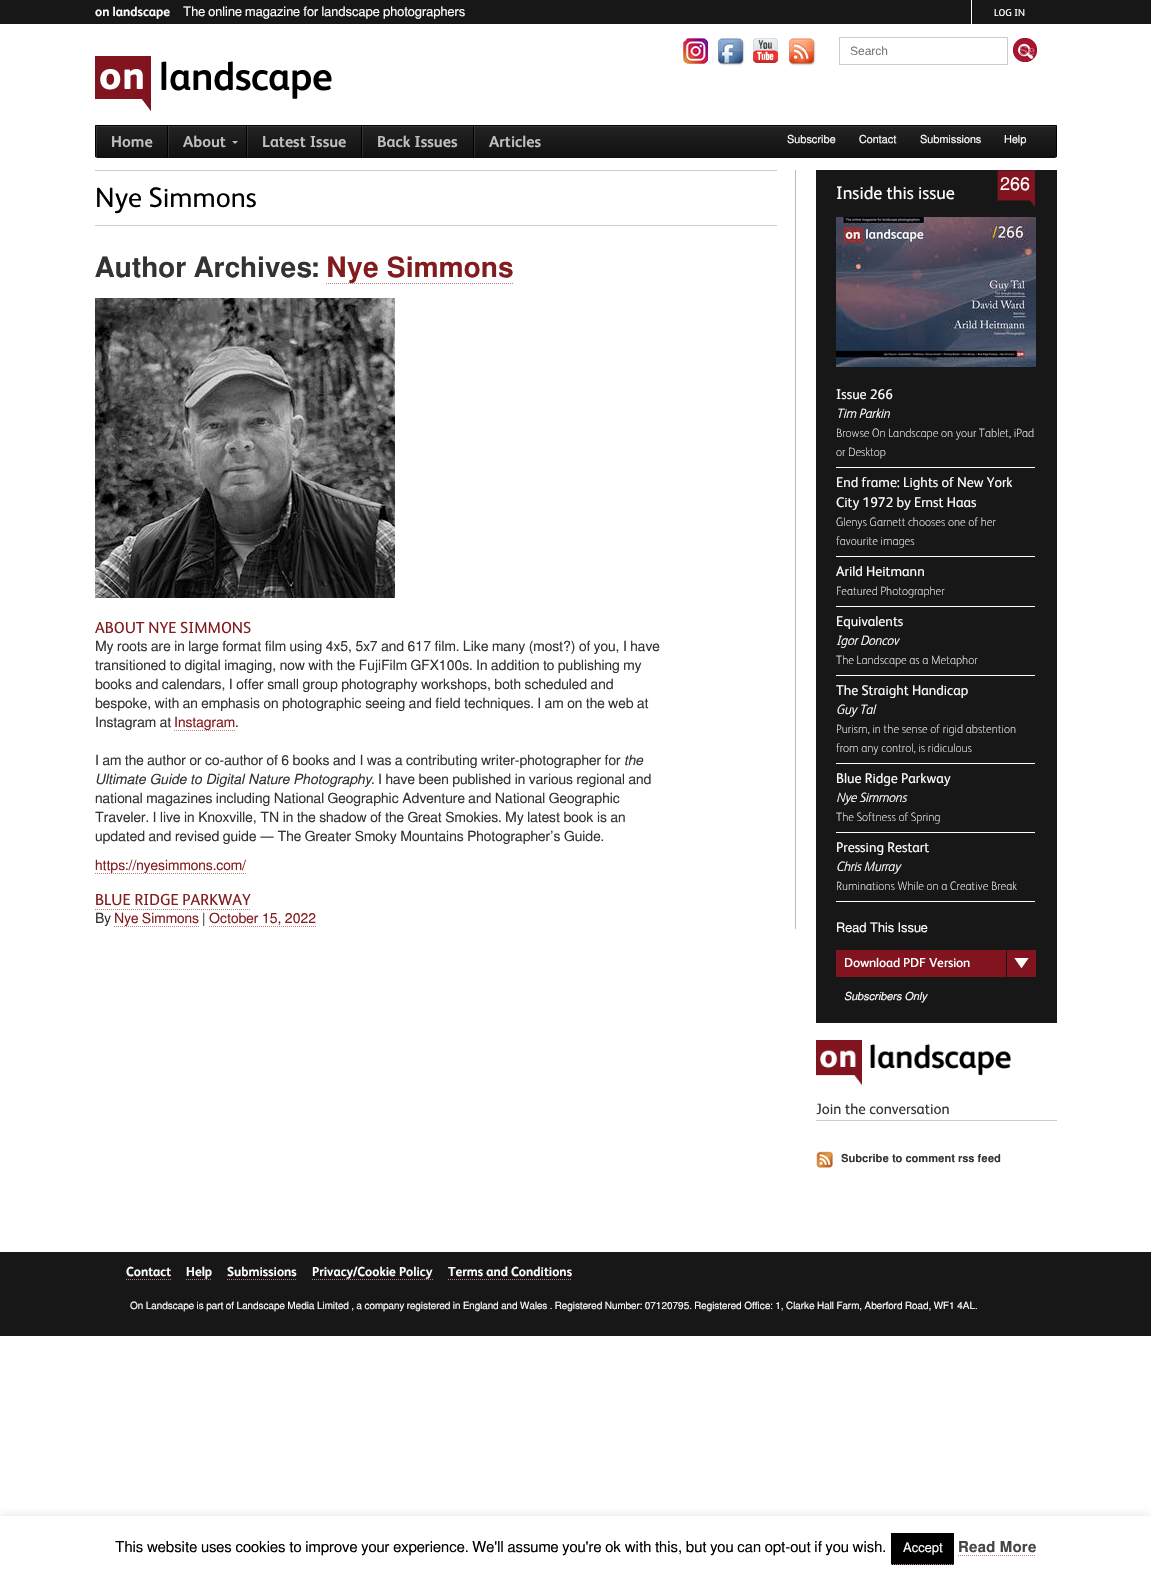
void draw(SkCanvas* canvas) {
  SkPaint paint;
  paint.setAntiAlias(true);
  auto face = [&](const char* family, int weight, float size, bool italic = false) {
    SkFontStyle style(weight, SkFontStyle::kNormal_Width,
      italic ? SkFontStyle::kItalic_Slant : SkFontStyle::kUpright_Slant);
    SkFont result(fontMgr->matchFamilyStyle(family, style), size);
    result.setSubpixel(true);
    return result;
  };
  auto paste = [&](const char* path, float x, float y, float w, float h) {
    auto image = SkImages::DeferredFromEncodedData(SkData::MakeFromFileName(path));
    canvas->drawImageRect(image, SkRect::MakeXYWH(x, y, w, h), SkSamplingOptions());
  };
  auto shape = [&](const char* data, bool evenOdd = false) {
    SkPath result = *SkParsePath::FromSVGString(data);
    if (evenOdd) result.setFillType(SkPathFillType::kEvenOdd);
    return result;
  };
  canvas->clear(0xffffffff);
  paint.setColor(0xff171717);
  canvas->drawRect(SkRect::MakeXYWH(0, 0, 1151, 24), paint);
  paint.setColor(0xffffffff);
  canvas->drawRect(SkRect::MakeXYWH(971, 0, 1, 24), paint);
  paste("img/1.png", 683, 38, 25, 26);
  paste("img/2.png", 718, 38, 27, 28);
  paste("img/3.png", 753, 38, 25, 25);
  paste("img/4.png", 789, 38, 27, 28);
  paint.setStroke(true);
  paint.setStrokeWidth(1);
  paint.setColor(0xffcccccc);
  canvas->drawRect(SkRect::MakeXYWH(839.5f, 37.5f, 168, 27), paint);
  paste("img/5.png", 1013, 38, 24, 24);
  paste("img/6.png", 95, 56, 237, 55);
  paint.setStroke(false);
  paint.setColor(0xff171717);
  canvas->drawRect(SkRect::MakeXYWH(95, 125, 962, 1), paint);
  canvas->save();
  canvas->clipPath(shape("M97 125H1055C1056 125 1057 126 1057 127V156C1057 157 1056 158 1055 158H97C96 158 95 157 95 156V127C95 126 96 125 97 125Z"), true);
  {
    const SkColor colors[] = {0xff232323, 0xff101010};
    const float stops[] = {0, 1};
    const SkPoint ends[] = {{576, 126}, {576, 158}};
    paint.setShader(SkGradientShader::MakeLinear(ends, colors, stops, 2, SkTileMode::kClamp));
    paint.setAlpha(255);
  }
  canvas->drawPath(shape("M95 126H1057V156C1057 157 1056 158 1055 158H97C96 158 95 157 95 156Z"), paint);
  canvas->restore();
  paint.setShader(nullptr);
  paint.setColor(0xff393939);
  canvas->drawPath(shape("M97 127H1055C1056 127 1056 127 1056 128V127L1055 126H97L96 127V128C96 127 96 127 97 127Z"), paint);
  {
    const struct { float x, y, w, h; SkColor color; } items[] = {
      {96, 125, 960, 1, 0xff000000},
      {1056, 126, 1, 31, 0xff000000},
      {95, 126, 1, 31, 0xff000000},
      {96, 126, 1, 32, 0x1affffff},
      {168, 126, 1, 32, 0x1affffff},
      {167, 126, 1, 32, 0xff000000},
    };
    for (auto [x, y, w, h, color] : items) {
      paint.setColor(color);
      canvas->drawRect(SkRect::MakeXYWH(x, y, w, h), paint);
    }
  }
  paint.setColor(0xffbbbbbb);
  canvas->drawPath(shape("M232 141H238L235 144Z"), paint);
  {
    const struct { float x, y, w, h; SkColor color; } items[] = {
      {247, 126, 1, 32, 0x1affffff},
      {246, 126, 1, 32, 0xff000000},
      {362, 126, 1, 32, 0x1affffff},
      {361, 126, 1, 32, 0xff000000},
      {474, 126, 1, 32, 0x1affffff},
      {473, 126, 1, 32, 0xff000000},
      {795, 170, 1, 759, 0xffacc4b5},
      {95, 170, 682, 1, 0xffcccccc},
      {95, 225, 682, 1, 0xffcccccc},
    };
    for (auto [x, y, w, h, color] : items) {
      paint.setColor(color);
      canvas->drawRect(SkRect::MakeXYWH(x, y, w, h), paint);
    }
  }
  paint.setStroke(true);
  paint.setColor(0xffbd8183);
  paint.setPathEffect(SkDashPathEffect::Make({{1, 1}}, 0));
  canvas->drawPath(shape("M326 283.5H514"), paint);
  paint.setPathEffect(nullptr);
  paste("img/7.png", 95, 298, 300, 300);
  paint.setPathEffect(SkDashPathEffect::Make({{1, 1}}, 0));
  canvas->drawPath(shape("M174 730.5H235"), paint);
  paint.setPathEffect(nullptr);
  paint.setPathEffect(SkDashPathEffect::Make({{1, 1}}, 0));
  canvas->drawPath(shape("M95 873.5H246"), paint);
  paint.setPathEffect(nullptr);
  paint.setPathEffect(SkDashPathEffect::Make({{1, 1}}, 0));
  canvas->drawPath(shape("M95 909.5H250"), paint);
  paint.setPathEffect(nullptr);
  paint.setPathEffect(SkDashPathEffect::Make({{1, 1}}, 0));
  canvas->drawPath(shape("M114 926.5H199"), paint);
  paint.setPathEffect(nullptr);
  paint.setPathEffect(SkDashPathEffect::Make({{1, 1}}, 0));
  canvas->drawPath(shape("M209 926.5H316"), paint);
  paint.setPathEffect(nullptr);
  paint.setStroke(false);
  paint.setColor(0xff171717);
  canvas->drawRect(SkRect::MakeXYWH(816, 170, 241, 853), paint);
  paste("img/8.png", 997, 170, 38, 37);
  paste("img/9.png", 836, 217, 200, 150);
  {
    const struct { float x, y, w, h; SkColor color; } items[] = {
      {836, 467, 199, 1, 0xffffffff},
      {836, 556, 199, 1, 0xffffffff},
      {836, 606, 199, 1, 0xffffffff},
      {836, 675, 199, 1, 0xffffffff},
      {836, 763, 199, 1, 0xffffffff},
      {836, 832, 199, 1, 0xffffffff},
      {836, 901, 199, 1, 0xffffffff},
    };
    for (auto [x, y, w, h, color] : items) {
      paint.setColor(color);
      canvas->drawRect(SkRect::MakeXYWH(x, y, w, h), paint);
    }
  }
  paste("img/10.png", 836, 950, 200, 27);
  paste("img/11.png", 816, 1040, 195, 45);
  paint.setColor(0xffcccccc);
  canvas->drawRect(SkRect::MakeXYWH(816, 1120, 241, 1), paint);
  paste("img/12.png", 816, 1151, 17, 17);
  paint.setColor(0xff171717);
  canvas->drawRect(SkRect::MakeXYWH(0, 1252, 1151, 84), paint);
  paint.setStroke(true);
  paint.setColor(0xffbd8183);
  paint.setPathEffect(SkDashPathEffect::Make({{1, 1}}, 0));
  canvas->drawPath(shape("M126 1279.5H171"), paint);
  paint.setPathEffect(nullptr);
  paint.setPathEffect(SkDashPathEffect::Make({{1, 1}}, 0));
  canvas->drawPath(shape("M186 1279.5H212"), paint);
  paint.setPathEffect(nullptr);
  paint.setPathEffect(SkDashPathEffect::Make({{1, 1}}, 0));
  canvas->drawPath(shape("M227 1279.5H297"), paint);
  paint.setPathEffect(nullptr);
  paint.setPathEffect(SkDashPathEffect::Make({{1, 1}}, 0));
  canvas->drawPath(shape("M312 1279.5H433"), paint);
  paint.setPathEffect(nullptr);
  paint.setPathEffect(SkDashPathEffect::Make({{1, 1}}, 0));
  canvas->drawPath(shape("M448 1279.5H572"), paint);
  paint.setPathEffect(nullptr);
  canvas->save();
  canvas->clipRect(SkRect::MakeXYWH(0, 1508, 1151, 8));
  paint.setStroke(false);
  paint.setColor(0x4dacabab);
  paint.setMaskFilter(SkMaskFilter::MakeBlur(kNormal_SkBlurStyle, 5));
  canvas->drawRect(SkRect::MakeXYWH(0, 1515, 1151, 61), paint);
  paint.setMaskFilter(nullptr);
  canvas->restore();
  paint.setColor(0xff000000);
  canvas->drawRect(SkRect::MakeXYWH(891, 1533, 63, 32), paint);
  paint.setStroke(true);
  paint.setColor(0xffbd8183);
  paint.setPathEffect(SkDashPathEffect::Make({{1, 1}}, 0));
  canvas->drawPath(shape("M891 1564.5H954"), paint);
  paint.setPathEffect(nullptr);
  paint.setPathEffect(SkDashPathEffect::Make({{1, 1}}, 0));
  canvas->drawPath(shape("M958 1555.5H1036"), paint);
  paint.setPathEffect(nullptr);
  auto f0 = face("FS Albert", 700, 13);
  paint.setStroke(false);
  paint.setColor(0xffffffff);
  canvas->drawString("on landscape", 95, 16, f0, paint);
  auto f1 = face("FreeSans", 400, 13);
  canvas->drawString("The online magazine for landscape photographers", 183, 16, f1, paint);
  auto f2 = face("FS Albert", 400, 10);
  canvas->drawString("LOG IN", 994, 16, f2, paint);
  auto f3 = face("Liberation Sans", 400, 12);
  paint.setColor(0xff757575);
  canvas->drawString("Search", 850, 55, f3, paint);
  auto f4 = face("Liberation Sans", 400, 13);
  paint.setColor(0xffc76d7e);
  canvas->drawString("Se", 1019, 55, f4, paint);
  auto f5 = face("FS Albert", 700, 16);
  paint.setColor(0xffbfbfbf);
  {
    const struct { const char* s; float x, y; } items[] = {
      {"Home", 111, 147},
      {"About", 183, 147},
      {"Latest Issue", 262, 147},
      {"Back Issues", 377, 147},
      {"Articles", 489, 147},
    };
    for (auto [s, x, y] : items) {
      canvas->drawString(s, x, y, f5, paint);
    }
  }
  auto f6 = face("FreeSans", 400, 11);
  paint.setColor(0xffffffff);
  {
    const struct { const char* s; float x, y; } items[] = {
      {"Subscribe", 787, 143},
      {"Contact", 859, 143},
      {"Submissions", 920, 143},
      {"Help", 1004, 143},
    };
    for (auto [s, x, y] : items) {
      canvas->drawString(s, x, y, f6, paint);
    }
  }
  auto f7 = face("FS Albert", 400, 28);
  paint.setColor(0xff000000);
  canvas->drawString("Nye Simmons", 95, 207, f7, paint);
  auto f8 = face("FreeSans", 600, 28);
  paint.setColor(0xff333333);
  canvas->drawString("Author Archives:", 95, 277, f8, paint);
  paint.setColor(0xff831c1f);
  canvas->drawString("Nye Simmons", 326, 277, f8, paint);
  auto f9 = face("FS Albert", 400, 16);
  canvas->drawString("ABOUT NYE SIMMONS", 95, 633, f9, paint);
  auto f10 = face("FreeSans", 400, 14);
  paint.setColor(0xff333333);
  {
    const struct { const char* s; float x, y; } items[] = {
      {"My roots are in large format film using 4x5, 5x7 and 617 film. Like many (most?) of you, I have", 95, 651},
      {"transitioned to digital imaging, now with the FujiFilm GFX100s. In addition to publishing my", 95, 670},
      {"books and calendars, I offer small group photography workshops, both scheduled and", 95, 689},
      {"bespoke, with an emphasis on photographic seeing and field techniques. I am on the web at", 95, 708},
      {"Instagram at", 95, 727},
    };
    for (auto [s, x, y] : items) {
      canvas->drawString(s, x, y, f10, paint);
    }
  }
  paint.setColor(0xff831c1f);
  canvas->drawString("Instagram", 174, 727, f10, paint);
  paint.setColor(0xff333333);
  canvas->drawString(".", 235, 727, f10, paint);
  canvas->drawString("I am the author or co-author of 6 books and I was a contributing writer-photographer for", 95, 765, f10, paint);
  auto f11 = face("FreeSans", 400, 14, true);
  canvas->drawString("the", 624, 765, f11, paint);
  canvas->drawString("Ultimate Guide to Digital Nature Photography", 95, 784, f11, paint);
  {
    const struct { const char* s; float x, y; } items[] = {
      {". I have been published in various regional and", 371, 784},
      {"national magazines including National Geographic Adventure and National Geographic", 95, 803},
      {"Traveler. I live in Knoxville, TN in the shadow of the Great Smokies. My latest book is an", 95, 822},
      {"updated and revised guide — The Greater Smoky Mountains Photographer’s Guide.", 95, 841},
    };
    for (auto [s, x, y] : items) {
      canvas->drawString(s, x, y, f10, paint);
    }
  }
  paint.setColor(0xff831c1f);
  canvas->drawString("https://nyesimmons.com/", 95, 870, f10, paint);
  canvas->drawString("BLUE RIDGE PARKWAY", 95, 905, f9, paint);
  paint.setColor(0xff333333);
  canvas->drawString("By", 95, 923, f10, paint);
  paint.setColor(0xff831c1f);
  canvas->drawString("Nye Simmons", 114, 923, f10, paint);
  paint.setColor(0xff333333);
  canvas->drawString("|", 202, 923, f10, paint);
  paint.setColor(0xff831c1f);
  canvas->drawString("October 15, 2022", 209, 923, f10, paint);
  auto f12 = face("FreeSans", 400, 18);
  paint.setColor(0xffffffff);
  canvas->drawString("266", 1000, 190, f12, paint);
  auto f13 = face("FS Albert", 400, 18);
  canvas->drawString("Inside this issue", 836, 199, f13, paint);
  auto f14 = face("FS Albert", 400, 14);
  canvas->drawString("Issue 266", 836, 399, f14, paint);
  auto f15 = face("FS Albert", 700, 13, true);
  canvas->drawString("Tim Parkin", 836, 418, f15, paint);
  auto f16 = face("FS Albert", 100, 12);
  canvas->drawString("Browse On Landscape on your Tablet, iPad", 836, 437, f16, paint);
  canvas->drawString("or Desktop", 836, 456, f16, paint);
  canvas->drawString("End frame: Lights of New York", 836, 487, f14, paint);
  canvas->drawString("City 1972 by Ernst Haas", 836, 507, f14, paint);
  canvas->drawString("Glenys Garnett chooses one of her", 836, 526, f16, paint);
  canvas->drawString("favourite images", 836, 545, f16, paint);
  canvas->drawString("Arild Heitmann", 836, 576, f14, paint);
  canvas->drawString("Featured Photographer", 836, 595, f16, paint);
  canvas->drawString("Equivalents", 836, 626, f14, paint);
  canvas->drawString("Igor Doncov", 836, 645, f15, paint);
  canvas->drawString("The Landscape as a Metaphor", 836, 664, f16, paint);
  canvas->drawString("The Straight Handicap", 836, 695, f14, paint);
  canvas->drawString("Guy Tal", 836, 714, f15, paint);
  canvas->drawString("Purism, in the sense of rigid abstention", 836, 733, f16, paint);
  canvas->drawString("from any control, is ridiculous", 836, 752, f16, paint);
  canvas->drawString("Blue Ridge Parkway", 836, 783, f14, paint);
  canvas->drawString("Nye Simmons", 836, 802, f15, paint);
  canvas->drawString("The Softness of Spring", 836, 821, f16, paint);
  canvas->drawString("Pressing Restart", 836, 852, f14, paint);
  canvas->drawString("Chris Murray", 836, 871, f15, paint);
  canvas->drawString("Ruminations While on a Creative Break", 836, 890, f16, paint);
  canvas->drawString("Read This Issue", 836, 932, f1, paint);
  auto f17 = face("FreeSans", 400, 11, true);
  canvas->drawString("Subscribers Only", 844, 1000, f17, paint);
  auto f18 = face("FS Albert", 400, 15);
  paint.setColor(0xff333333);
  canvas->drawString("Join the conversation", 816, 1114, f18, paint);
  auto f19 = face("FreeSans", 600, 11);
  canvas->drawString("Subcribe to comment rss feed", 841, 1162, f19, paint);
  paint.setColor(0xffffffff);
  {
    const struct { const char* s; float x, y; } items[] = {
      {"Contact", 126, 1276},
      {"Help", 186, 1276},
      {"Submissions", 227, 1276},
      {"Privacy/Cookie Policy", 312, 1276},
      {"Terms and Conditions", 448, 1276},
    };
    for (auto [s, x, y] : items) {
      canvas->drawString(s, x, y, f0, paint);
    }
  }
  auto f20 = face("FreeSans", 400, 10);
  canvas->drawString("On Landscape is part of Landscape Media Limited , a company registered in England and Wales . Registered Number: 07120795. Registered Office: 1, Clarke Hall Farm, Aberford Road, WF1 4AL.", 130, 1309, f20, paint);
  auto f21 = face("FreeSans", 400, 15);
  paint.setColor(0xff000000);
  canvas->drawString("This website uses cookies to improve your experience. We'll assume you're ok with this, but you can opt-out if you wish.", 115, 1552, f21, paint);
  paint.setColor(0xffffffff);
  canvas->drawString("Accept", 903, 1552, f1, paint);
  auto f22 = face("FreeSans", 600, 15);
  paint.setColor(0xff444444);
  canvas->drawString("Read More", 958, 1552, f22, paint);
}
